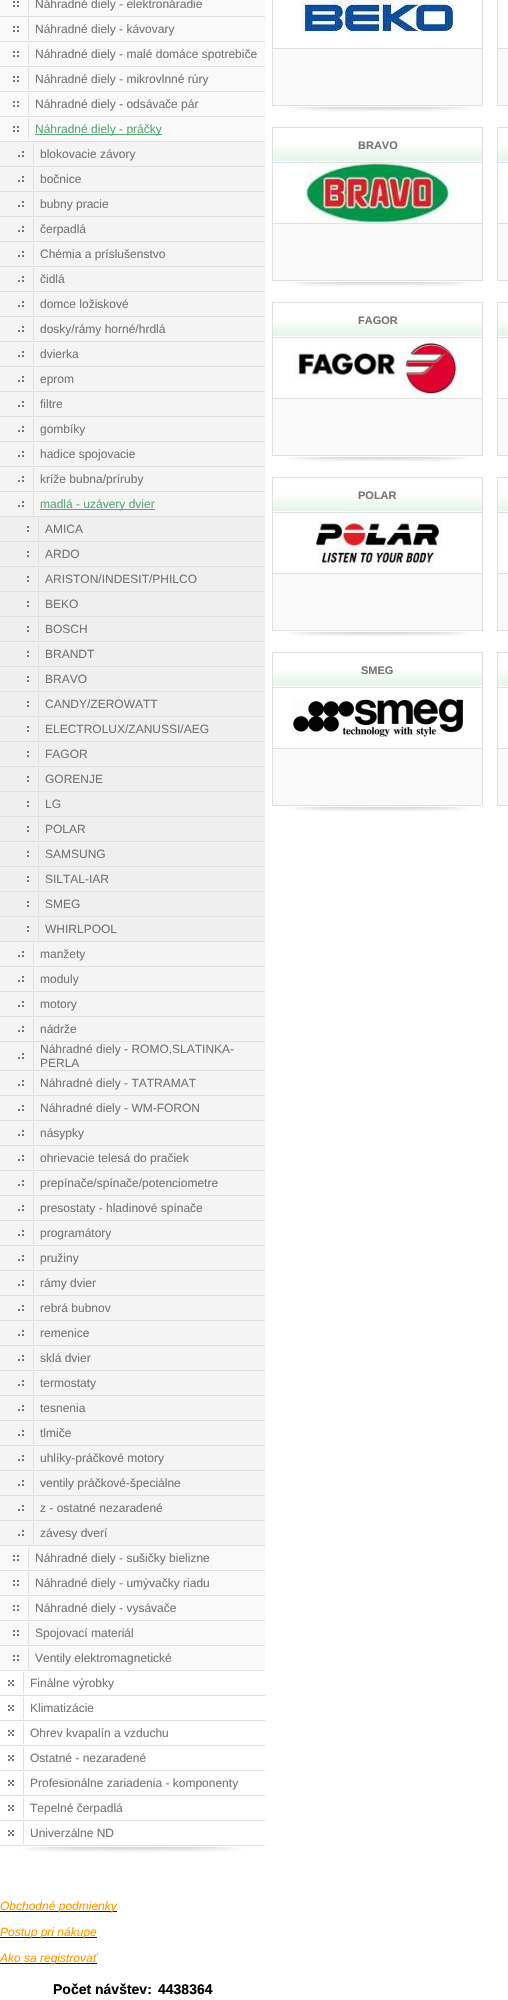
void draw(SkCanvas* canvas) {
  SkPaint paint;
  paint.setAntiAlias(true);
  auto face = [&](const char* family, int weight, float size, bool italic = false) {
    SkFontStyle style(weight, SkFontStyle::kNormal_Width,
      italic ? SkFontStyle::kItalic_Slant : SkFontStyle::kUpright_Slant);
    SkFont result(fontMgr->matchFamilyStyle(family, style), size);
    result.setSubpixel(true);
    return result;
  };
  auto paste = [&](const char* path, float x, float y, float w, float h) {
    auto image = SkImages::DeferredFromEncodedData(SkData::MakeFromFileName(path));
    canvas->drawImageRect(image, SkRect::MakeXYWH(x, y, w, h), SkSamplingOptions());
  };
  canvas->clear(0xffffffff);
  {
    const struct { float x, y, w, h; SkColor color; } items[] = {
      {0, 0, 265, 16, 0xfff9f9f9},
      {0, 16, 265, 1, 0xffe0e0e0},
      {28, 0, 1, 15, 0xffe0e0e0},
    };
    for (auto [x, y, w, h, color] : items) {
      paint.setColor(color);
      canvas->drawRect(SkRect::MakeXYWH(x, y, w, h), paint);
    }
  }
  paste("img/1.png", 13, 1, 6, 6);
  {
    const struct { float x, y, w, h; SkColor color; } items[] = {
      {0, 17, 265, 24, 0xfff9f9f9},
      {0, 41, 265, 1, 0xffe0e0e0},
      {28, 18, 1, 22, 0xffe0e0e0},
    };
    for (auto [x, y, w, h, color] : items) {
      paint.setColor(color);
      canvas->drawRect(SkRect::MakeXYWH(x, y, w, h), paint);
    }
  }
  paste("img/1.png", 13, 26, 6, 6);
  {
    const struct { float x, y, w, h; SkColor color; } items[] = {
      {0, 42, 265, 24, 0xfff9f9f9},
      {0, 66, 265, 1, 0xffe0e0e0},
      {28, 43, 1, 22, 0xffe0e0e0},
    };
    for (auto [x, y, w, h, color] : items) {
      paint.setColor(color);
      canvas->drawRect(SkRect::MakeXYWH(x, y, w, h), paint);
    }
  }
  paste("img/1.png", 13, 51, 6, 6);
  {
    const struct { float x, y, w, h; SkColor color; } items[] = {
      {0, 67, 265, 24, 0xfff9f9f9},
      {0, 91, 265, 1, 0xffe0e0e0},
      {28, 68, 1, 22, 0xffe0e0e0},
    };
    for (auto [x, y, w, h, color] : items) {
      paint.setColor(color);
      canvas->drawRect(SkRect::MakeXYWH(x, y, w, h), paint);
    }
  }
  paste("img/1.png", 13, 76, 6, 6);
  {
    const struct { float x, y, w, h; SkColor color; } items[] = {
      {0, 92, 265, 24, 0xfff9f9f9},
      {0, 116, 265, 1, 0xffe0e0e0},
      {28, 93, 1, 22, 0xffe0e0e0},
    };
    for (auto [x, y, w, h, color] : items) {
      paint.setColor(color);
      canvas->drawRect(SkRect::MakeXYWH(x, y, w, h), paint);
    }
  }
  paste("img/1.png", 13, 101, 6, 6);
  {
    const struct { float x, y, w, h; SkColor color; } items[] = {
      {0, 117, 265, 24, 0xfff9f9f9},
      {0, 141, 265, 1, 0xffe0e0e0},
      {28, 118, 1, 22, 0xffe0e0e0},
    };
    for (auto [x, y, w, h, color] : items) {
      paint.setColor(color);
      canvas->drawRect(SkRect::MakeXYWH(x, y, w, h), paint);
    }
  }
  paste("img/1.png", 13, 126, 6, 6);
  {
    const struct { float x, y, w, h; SkColor color; } items[] = {
      {35, 134, 127, 1, 0xff5aaa76},
      {0, 142, 265, 24, 0xfff5f4f4},
      {0, 166, 265, 1, 0xffe0e0e0},
      {33, 143, 1, 22, 0xffe0e0e0},
    };
    for (auto [x, y, w, h, color] : items) {
      paint.setColor(color);
      canvas->drawRect(SkRect::MakeXYWH(x, y, w, h), paint);
    }
  }
  paste("img/2.png", 18, 151, 6, 6);
  {
    const struct { float x, y, w, h; SkColor color; } items[] = {
      {0, 167, 265, 24, 0xfff5f4f4},
      {0, 191, 265, 1, 0xffe0e0e0},
      {33, 168, 1, 22, 0xffe0e0e0},
    };
    for (auto [x, y, w, h, color] : items) {
      paint.setColor(color);
      canvas->drawRect(SkRect::MakeXYWH(x, y, w, h), paint);
    }
  }
  paste("img/2.png", 18, 176, 6, 6);
  {
    const struct { float x, y, w, h; SkColor color; } items[] = {
      {0, 192, 265, 24, 0xfff5f4f4},
      {0, 216, 265, 1, 0xffe0e0e0},
      {33, 193, 1, 22, 0xffe0e0e0},
    };
    for (auto [x, y, w, h, color] : items) {
      paint.setColor(color);
      canvas->drawRect(SkRect::MakeXYWH(x, y, w, h), paint);
    }
  }
  paste("img/2.png", 18, 201, 6, 6);
  {
    const struct { float x, y, w, h; SkColor color; } items[] = {
      {0, 217, 265, 24, 0xfff5f4f4},
      {0, 241, 265, 1, 0xffe0e0e0},
      {33, 218, 1, 22, 0xffe0e0e0},
    };
    for (auto [x, y, w, h, color] : items) {
      paint.setColor(color);
      canvas->drawRect(SkRect::MakeXYWH(x, y, w, h), paint);
    }
  }
  paste("img/2.png", 18, 226, 6, 6);
  {
    const struct { float x, y, w, h; SkColor color; } items[] = {
      {0, 242, 265, 24, 0xfff5f4f4},
      {0, 266, 265, 1, 0xffe0e0e0},
      {33, 243, 1, 22, 0xffe0e0e0},
    };
    for (auto [x, y, w, h, color] : items) {
      paint.setColor(color);
      canvas->drawRect(SkRect::MakeXYWH(x, y, w, h), paint);
    }
  }
  paste("img/2.png", 18, 251, 6, 6);
  {
    const struct { float x, y, w, h; SkColor color; } items[] = {
      {0, 267, 265, 24, 0xfff5f4f4},
      {0, 291, 265, 1, 0xffe0e0e0},
      {33, 268, 1, 22, 0xffe0e0e0},
    };
    for (auto [x, y, w, h, color] : items) {
      paint.setColor(color);
      canvas->drawRect(SkRect::MakeXYWH(x, y, w, h), paint);
    }
  }
  paste("img/2.png", 18, 276, 6, 6);
  {
    const struct { float x, y, w, h; SkColor color; } items[] = {
      {0, 292, 265, 24, 0xfff5f4f4},
      {0, 316, 265, 1, 0xffe0e0e0},
      {33, 293, 1, 22, 0xffe0e0e0},
    };
    for (auto [x, y, w, h, color] : items) {
      paint.setColor(color);
      canvas->drawRect(SkRect::MakeXYWH(x, y, w, h), paint);
    }
  }
  paste("img/2.png", 18, 301, 6, 6);
  {
    const struct { float x, y, w, h; SkColor color; } items[] = {
      {0, 317, 265, 24, 0xfff5f4f4},
      {0, 341, 265, 1, 0xffe0e0e0},
      {33, 318, 1, 22, 0xffe0e0e0},
    };
    for (auto [x, y, w, h, color] : items) {
      paint.setColor(color);
      canvas->drawRect(SkRect::MakeXYWH(x, y, w, h), paint);
    }
  }
  paste("img/2.png", 18, 326, 6, 6);
  {
    const struct { float x, y, w, h; SkColor color; } items[] = {
      {0, 342, 265, 24, 0xfff5f4f4},
      {0, 366, 265, 1, 0xffe0e0e0},
      {33, 343, 1, 22, 0xffe0e0e0},
    };
    for (auto [x, y, w, h, color] : items) {
      paint.setColor(color);
      canvas->drawRect(SkRect::MakeXYWH(x, y, w, h), paint);
    }
  }
  paste("img/2.png", 18, 351, 6, 6);
  {
    const struct { float x, y, w, h; SkColor color; } items[] = {
      {0, 367, 265, 24, 0xfff5f4f4},
      {0, 391, 265, 1, 0xffe0e0e0},
      {33, 368, 1, 22, 0xffe0e0e0},
    };
    for (auto [x, y, w, h, color] : items) {
      paint.setColor(color);
      canvas->drawRect(SkRect::MakeXYWH(x, y, w, h), paint);
    }
  }
  paste("img/2.png", 18, 376, 6, 6);
  {
    const struct { float x, y, w, h; SkColor color; } items[] = {
      {0, 392, 265, 24, 0xfff5f4f4},
      {0, 416, 265, 1, 0xffe0e0e0},
      {33, 393, 1, 22, 0xffe0e0e0},
    };
    for (auto [x, y, w, h, color] : items) {
      paint.setColor(color);
      canvas->drawRect(SkRect::MakeXYWH(x, y, w, h), paint);
    }
  }
  paste("img/2.png", 18, 401, 6, 6);
  {
    const struct { float x, y, w, h; SkColor color; } items[] = {
      {0, 417, 265, 24, 0xfff5f4f4},
      {0, 441, 265, 1, 0xffe0e0e0},
      {33, 418, 1, 22, 0xffe0e0e0},
    };
    for (auto [x, y, w, h, color] : items) {
      paint.setColor(color);
      canvas->drawRect(SkRect::MakeXYWH(x, y, w, h), paint);
    }
  }
  paste("img/2.png", 18, 426, 6, 6);
  {
    const struct { float x, y, w, h; SkColor color; } items[] = {
      {0, 442, 265, 24, 0xfff5f4f4},
      {0, 466, 265, 1, 0xffe0e0e0},
      {33, 443, 1, 22, 0xffe0e0e0},
    };
    for (auto [x, y, w, h, color] : items) {
      paint.setColor(color);
      canvas->drawRect(SkRect::MakeXYWH(x, y, w, h), paint);
    }
  }
  paste("img/2.png", 18, 451, 6, 6);
  {
    const struct { float x, y, w, h; SkColor color; } items[] = {
      {0, 467, 265, 24, 0xfff5f4f4},
      {0, 491, 265, 1, 0xffe0e0e0},
      {33, 468, 1, 22, 0xffe0e0e0},
    };
    for (auto [x, y, w, h, color] : items) {
      paint.setColor(color);
      canvas->drawRect(SkRect::MakeXYWH(x, y, w, h), paint);
    }
  }
  paste("img/2.png", 18, 476, 6, 6);
  {
    const struct { float x, y, w, h; SkColor color; } items[] = {
      {0, 492, 265, 24, 0xfff5f4f4},
      {0, 516, 265, 1, 0xffe0e0e0},
      {33, 493, 1, 22, 0xffe0e0e0},
    };
    for (auto [x, y, w, h, color] : items) {
      paint.setColor(color);
      canvas->drawRect(SkRect::MakeXYWH(x, y, w, h), paint);
    }
  }
  paste("img/2.png", 18, 501, 6, 6);
  {
    const struct { float x, y, w, h; SkColor color; } items[] = {
      {40, 509, 115, 1, 0xff5aaa76},
      {0, 517, 265, 24, 0xffefefef},
      {0, 541, 265, 1, 0xffe0e0e0},
      {38, 518, 1, 22, 0xffe0e0e0},
    };
    for (auto [x, y, w, h, color] : items) {
      paint.setColor(color);
      canvas->drawRect(SkRect::MakeXYWH(x, y, w, h), paint);
    }
  }
  paste("img/3.png", 27, 526, 2, 6);
  {
    const struct { float x, y, w, h; SkColor color; } items[] = {
      {0, 542, 265, 24, 0xffefefef},
      {0, 566, 265, 1, 0xffe0e0e0},
      {38, 543, 1, 22, 0xffe0e0e0},
    };
    for (auto [x, y, w, h, color] : items) {
      paint.setColor(color);
      canvas->drawRect(SkRect::MakeXYWH(x, y, w, h), paint);
    }
  }
  paste("img/3.png", 27, 551, 2, 6);
  {
    const struct { float x, y, w, h; SkColor color; } items[] = {
      {0, 567, 265, 24, 0xffefefef},
      {0, 591, 265, 1, 0xffe0e0e0},
      {38, 568, 1, 22, 0xffe0e0e0},
    };
    for (auto [x, y, w, h, color] : items) {
      paint.setColor(color);
      canvas->drawRect(SkRect::MakeXYWH(x, y, w, h), paint);
    }
  }
  paste("img/3.png", 27, 576, 2, 6);
  {
    const struct { float x, y, w, h; SkColor color; } items[] = {
      {0, 592, 265, 24, 0xffefefef},
      {0, 616, 265, 1, 0xffe0e0e0},
      {38, 593, 1, 22, 0xffe0e0e0},
    };
    for (auto [x, y, w, h, color] : items) {
      paint.setColor(color);
      canvas->drawRect(SkRect::MakeXYWH(x, y, w, h), paint);
    }
  }
  paste("img/3.png", 27, 601, 2, 6);
  {
    const struct { float x, y, w, h; SkColor color; } items[] = {
      {0, 617, 265, 24, 0xffefefef},
      {0, 641, 265, 1, 0xffe0e0e0},
      {38, 618, 1, 22, 0xffe0e0e0},
    };
    for (auto [x, y, w, h, color] : items) {
      paint.setColor(color);
      canvas->drawRect(SkRect::MakeXYWH(x, y, w, h), paint);
    }
  }
  paste("img/3.png", 27, 626, 2, 6);
  {
    const struct { float x, y, w, h; SkColor color; } items[] = {
      {0, 642, 265, 24, 0xffefefef},
      {0, 666, 265, 1, 0xffe0e0e0},
      {38, 643, 1, 22, 0xffe0e0e0},
    };
    for (auto [x, y, w, h, color] : items) {
      paint.setColor(color);
      canvas->drawRect(SkRect::MakeXYWH(x, y, w, h), paint);
    }
  }
  paste("img/3.png", 27, 651, 2, 6);
  {
    const struct { float x, y, w, h; SkColor color; } items[] = {
      {0, 667, 265, 24, 0xffefefef},
      {0, 691, 265, 1, 0xffe0e0e0},
      {38, 668, 1, 22, 0xffe0e0e0},
    };
    for (auto [x, y, w, h, color] : items) {
      paint.setColor(color);
      canvas->drawRect(SkRect::MakeXYWH(x, y, w, h), paint);
    }
  }
  paste("img/3.png", 27, 676, 2, 6);
  {
    const struct { float x, y, w, h; SkColor color; } items[] = {
      {0, 692, 265, 24, 0xffefefef},
      {0, 716, 265, 1, 0xffe0e0e0},
      {38, 693, 1, 22, 0xffe0e0e0},
    };
    for (auto [x, y, w, h, color] : items) {
      paint.setColor(color);
      canvas->drawRect(SkRect::MakeXYWH(x, y, w, h), paint);
    }
  }
  paste("img/3.png", 27, 701, 2, 6);
  {
    const struct { float x, y, w, h; SkColor color; } items[] = {
      {0, 717, 265, 24, 0xffefefef},
      {0, 741, 265, 1, 0xffe0e0e0},
      {38, 718, 1, 22, 0xffe0e0e0},
    };
    for (auto [x, y, w, h, color] : items) {
      paint.setColor(color);
      canvas->drawRect(SkRect::MakeXYWH(x, y, w, h), paint);
    }
  }
  paste("img/3.png", 27, 726, 2, 6);
  {
    const struct { float x, y, w, h; SkColor color; } items[] = {
      {0, 742, 265, 24, 0xffefefef},
      {0, 766, 265, 1, 0xffe0e0e0},
      {38, 743, 1, 22, 0xffe0e0e0},
    };
    for (auto [x, y, w, h, color] : items) {
      paint.setColor(color);
      canvas->drawRect(SkRect::MakeXYWH(x, y, w, h), paint);
    }
  }
  paste("img/3.png", 27, 751, 2, 6);
  {
    const struct { float x, y, w, h; SkColor color; } items[] = {
      {0, 767, 265, 24, 0xffefefef},
      {0, 791, 265, 1, 0xffe0e0e0},
      {38, 768, 1, 22, 0xffe0e0e0},
    };
    for (auto [x, y, w, h, color] : items) {
      paint.setColor(color);
      canvas->drawRect(SkRect::MakeXYWH(x, y, w, h), paint);
    }
  }
  paste("img/3.png", 27, 776, 2, 6);
  {
    const struct { float x, y, w, h; SkColor color; } items[] = {
      {0, 792, 265, 24, 0xffefefef},
      {0, 816, 265, 1, 0xffe0e0e0},
      {38, 793, 1, 22, 0xffe0e0e0},
    };
    for (auto [x, y, w, h, color] : items) {
      paint.setColor(color);
      canvas->drawRect(SkRect::MakeXYWH(x, y, w, h), paint);
    }
  }
  paste("img/3.png", 27, 801, 2, 6);
  {
    const struct { float x, y, w, h; SkColor color; } items[] = {
      {0, 817, 265, 24, 0xffefefef},
      {0, 841, 265, 1, 0xffe0e0e0},
      {38, 818, 1, 22, 0xffe0e0e0},
    };
    for (auto [x, y, w, h, color] : items) {
      paint.setColor(color);
      canvas->drawRect(SkRect::MakeXYWH(x, y, w, h), paint);
    }
  }
  paste("img/3.png", 27, 826, 2, 6);
  {
    const struct { float x, y, w, h; SkColor color; } items[] = {
      {0, 842, 265, 24, 0xffefefef},
      {0, 866, 265, 1, 0xffe0e0e0},
      {38, 843, 1, 22, 0xffe0e0e0},
    };
    for (auto [x, y, w, h, color] : items) {
      paint.setColor(color);
      canvas->drawRect(SkRect::MakeXYWH(x, y, w, h), paint);
    }
  }
  paste("img/3.png", 27, 851, 2, 6);
  {
    const struct { float x, y, w, h; SkColor color; } items[] = {
      {0, 867, 265, 24, 0xffefefef},
      {0, 891, 265, 1, 0xffe0e0e0},
      {38, 868, 1, 22, 0xffe0e0e0},
    };
    for (auto [x, y, w, h, color] : items) {
      paint.setColor(color);
      canvas->drawRect(SkRect::MakeXYWH(x, y, w, h), paint);
    }
  }
  paste("img/3.png", 27, 876, 2, 6);
  {
    const struct { float x, y, w, h; SkColor color; } items[] = {
      {0, 892, 265, 24, 0xffefefef},
      {0, 916, 265, 1, 0xffe0e0e0},
      {38, 893, 1, 22, 0xffe0e0e0},
    };
    for (auto [x, y, w, h, color] : items) {
      paint.setColor(color);
      canvas->drawRect(SkRect::MakeXYWH(x, y, w, h), paint);
    }
  }
  paste("img/3.png", 27, 901, 2, 6);
  {
    const struct { float x, y, w, h; SkColor color; } items[] = {
      {0, 917, 265, 24, 0xffefefef},
      {0, 941, 265, 1, 0xffe0e0e0},
      {38, 918, 1, 22, 0xffe0e0e0},
    };
    for (auto [x, y, w, h, color] : items) {
      paint.setColor(color);
      canvas->drawRect(SkRect::MakeXYWH(x, y, w, h), paint);
    }
  }
  paste("img/3.png", 27, 926, 2, 6);
  {
    const struct { float x, y, w, h; SkColor color; } items[] = {
      {0, 942, 265, 24, 0xfff5f4f4},
      {0, 966, 265, 1, 0xffe0e0e0},
      {33, 943, 1, 22, 0xffe0e0e0},
    };
    for (auto [x, y, w, h, color] : items) {
      paint.setColor(color);
      canvas->drawRect(SkRect::MakeXYWH(x, y, w, h), paint);
    }
  }
  paste("img/2.png", 18, 951, 6, 6);
  {
    const struct { float x, y, w, h; SkColor color; } items[] = {
      {0, 967, 265, 24, 0xfff5f4f4},
      {0, 991, 265, 1, 0xffe0e0e0},
      {33, 968, 1, 22, 0xffe0e0e0},
    };
    for (auto [x, y, w, h, color] : items) {
      paint.setColor(color);
      canvas->drawRect(SkRect::MakeXYWH(x, y, w, h), paint);
    }
  }
  paste("img/2.png", 18, 976, 6, 6);
  {
    const struct { float x, y, w, h; SkColor color; } items[] = {
      {0, 992, 265, 24, 0xfff5f4f4},
      {0, 1016, 265, 1, 0xffe0e0e0},
      {33, 993, 1, 22, 0xffe0e0e0},
    };
    for (auto [x, y, w, h, color] : items) {
      paint.setColor(color);
      canvas->drawRect(SkRect::MakeXYWH(x, y, w, h), paint);
    }
  }
  paste("img/2.png", 18, 1001, 6, 6);
  {
    const struct { float x, y, w, h; SkColor color; } items[] = {
      {0, 1017, 265, 24, 0xfff5f4f4},
      {0, 1041, 265, 1, 0xffe0e0e0},
      {33, 1018, 1, 22, 0xffe0e0e0},
    };
    for (auto [x, y, w, h, color] : items) {
      paint.setColor(color);
      canvas->drawRect(SkRect::MakeXYWH(x, y, w, h), paint);
    }
  }
  paste("img/2.png", 18, 1026, 6, 6);
  {
    const struct { float x, y, w, h; SkColor color; } items[] = {
      {0, 1042, 265, 28, 0xfff5f4f4},
      {0, 1070, 265, 1, 0xffe0e0e0},
      {33, 1042, 1, 28, 0xffe0e0e0},
    };
    for (auto [x, y, w, h, color] : items) {
      paint.setColor(color);
      canvas->drawRect(SkRect::MakeXYWH(x, y, w, h), paint);
    }
  }
  paste("img/2.png", 18, 1053, 6, 6);
  {
    const struct { float x, y, w, h; SkColor color; } items[] = {
      {0, 1071, 265, 24, 0xfff5f4f4},
      {0, 1095, 265, 1, 0xffe0e0e0},
      {33, 1072, 1, 22, 0xffe0e0e0},
    };
    for (auto [x, y, w, h, color] : items) {
      paint.setColor(color);
      canvas->drawRect(SkRect::MakeXYWH(x, y, w, h), paint);
    }
  }
  paste("img/2.png", 18, 1080, 6, 6);
  {
    const struct { float x, y, w, h; SkColor color; } items[] = {
      {0, 1096, 265, 24, 0xfff5f4f4},
      {0, 1120, 265, 1, 0xffe0e0e0},
      {33, 1097, 1, 22, 0xffe0e0e0},
    };
    for (auto [x, y, w, h, color] : items) {
      paint.setColor(color);
      canvas->drawRect(SkRect::MakeXYWH(x, y, w, h), paint);
    }
  }
  paste("img/2.png", 18, 1105, 6, 6);
  {
    const struct { float x, y, w, h; SkColor color; } items[] = {
      {0, 1121, 265, 24, 0xfff5f4f4},
      {0, 1145, 265, 1, 0xffe0e0e0},
      {33, 1122, 1, 22, 0xffe0e0e0},
    };
    for (auto [x, y, w, h, color] : items) {
      paint.setColor(color);
      canvas->drawRect(SkRect::MakeXYWH(x, y, w, h), paint);
    }
  }
  paste("img/2.png", 18, 1130, 6, 6);
  {
    const struct { float x, y, w, h; SkColor color; } items[] = {
      {0, 1146, 265, 24, 0xfff5f4f4},
      {0, 1170, 265, 1, 0xffe0e0e0},
      {33, 1147, 1, 22, 0xffe0e0e0},
    };
    for (auto [x, y, w, h, color] : items) {
      paint.setColor(color);
      canvas->drawRect(SkRect::MakeXYWH(x, y, w, h), paint);
    }
  }
  paste("img/2.png", 18, 1155, 6, 6);
  {
    const struct { float x, y, w, h; SkColor color; } items[] = {
      {0, 1171, 265, 24, 0xfff5f4f4},
      {0, 1195, 265, 1, 0xffe0e0e0},
      {33, 1172, 1, 22, 0xffe0e0e0},
    };
    for (auto [x, y, w, h, color] : items) {
      paint.setColor(color);
      canvas->drawRect(SkRect::MakeXYWH(x, y, w, h), paint);
    }
  }
  paste("img/2.png", 18, 1180, 6, 6);
  {
    const struct { float x, y, w, h; SkColor color; } items[] = {
      {0, 1196, 265, 24, 0xfff5f4f4},
      {0, 1220, 265, 1, 0xffe0e0e0},
      {33, 1197, 1, 22, 0xffe0e0e0},
    };
    for (auto [x, y, w, h, color] : items) {
      paint.setColor(color);
      canvas->drawRect(SkRect::MakeXYWH(x, y, w, h), paint);
    }
  }
  paste("img/2.png", 18, 1205, 6, 6);
  {
    const struct { float x, y, w, h; SkColor color; } items[] = {
      {0, 1221, 265, 24, 0xfff5f4f4},
      {0, 1245, 265, 1, 0xffe0e0e0},
      {33, 1222, 1, 22, 0xffe0e0e0},
    };
    for (auto [x, y, w, h, color] : items) {
      paint.setColor(color);
      canvas->drawRect(SkRect::MakeXYWH(x, y, w, h), paint);
    }
  }
  paste("img/2.png", 18, 1230, 6, 6);
  {
    const struct { float x, y, w, h; SkColor color; } items[] = {
      {0, 1246, 265, 24, 0xfff5f4f4},
      {0, 1270, 265, 1, 0xffe0e0e0},
      {33, 1247, 1, 22, 0xffe0e0e0},
    };
    for (auto [x, y, w, h, color] : items) {
      paint.setColor(color);
      canvas->drawRect(SkRect::MakeXYWH(x, y, w, h), paint);
    }
  }
  paste("img/2.png", 18, 1255, 6, 6);
  {
    const struct { float x, y, w, h; SkColor color; } items[] = {
      {0, 1271, 265, 24, 0xfff5f4f4},
      {0, 1295, 265, 1, 0xffe0e0e0},
      {33, 1272, 1, 22, 0xffe0e0e0},
    };
    for (auto [x, y, w, h, color] : items) {
      paint.setColor(color);
      canvas->drawRect(SkRect::MakeXYWH(x, y, w, h), paint);
    }
  }
  paste("img/2.png", 18, 1280, 6, 6);
  {
    const struct { float x, y, w, h; SkColor color; } items[] = {
      {0, 1296, 265, 24, 0xfff5f4f4},
      {0, 1320, 265, 1, 0xffe0e0e0},
      {33, 1297, 1, 22, 0xffe0e0e0},
    };
    for (auto [x, y, w, h, color] : items) {
      paint.setColor(color);
      canvas->drawRect(SkRect::MakeXYWH(x, y, w, h), paint);
    }
  }
  paste("img/2.png", 18, 1305, 6, 6);
  {
    const struct { float x, y, w, h; SkColor color; } items[] = {
      {0, 1321, 265, 24, 0xfff5f4f4},
      {0, 1345, 265, 1, 0xffe0e0e0},
      {33, 1322, 1, 22, 0xffe0e0e0},
    };
    for (auto [x, y, w, h, color] : items) {
      paint.setColor(color);
      canvas->drawRect(SkRect::MakeXYWH(x, y, w, h), paint);
    }
  }
  paste("img/2.png", 18, 1330, 6, 6);
  {
    const struct { float x, y, w, h; SkColor color; } items[] = {
      {0, 1346, 265, 24, 0xfff5f4f4},
      {0, 1370, 265, 1, 0xffe0e0e0},
      {33, 1347, 1, 22, 0xffe0e0e0},
    };
    for (auto [x, y, w, h, color] : items) {
      paint.setColor(color);
      canvas->drawRect(SkRect::MakeXYWH(x, y, w, h), paint);
    }
  }
  paste("img/2.png", 18, 1355, 6, 6);
  {
    const struct { float x, y, w, h; SkColor color; } items[] = {
      {0, 1371, 265, 24, 0xfff5f4f4},
      {0, 1395, 265, 1, 0xffe0e0e0},
      {33, 1372, 1, 22, 0xffe0e0e0},
    };
    for (auto [x, y, w, h, color] : items) {
      paint.setColor(color);
      canvas->drawRect(SkRect::MakeXYWH(x, y, w, h), paint);
    }
  }
  paste("img/2.png", 18, 1380, 6, 6);
  {
    const struct { float x, y, w, h; SkColor color; } items[] = {
      {0, 1396, 265, 24, 0xfff5f4f4},
      {0, 1420, 265, 1, 0xffe0e0e0},
      {33, 1397, 1, 22, 0xffe0e0e0},
    };
    for (auto [x, y, w, h, color] : items) {
      paint.setColor(color);
      canvas->drawRect(SkRect::MakeXYWH(x, y, w, h), paint);
    }
  }
  paste("img/2.png", 18, 1405, 6, 6);
  {
    const struct { float x, y, w, h; SkColor color; } items[] = {
      {0, 1421, 265, 24, 0xfff5f4f4},
      {0, 1445, 265, 1, 0xffe0e0e0},
      {33, 1422, 1, 22, 0xffe0e0e0},
    };
    for (auto [x, y, w, h, color] : items) {
      paint.setColor(color);
      canvas->drawRect(SkRect::MakeXYWH(x, y, w, h), paint);
    }
  }
  paste("img/2.png", 18, 1430, 6, 6);
  {
    const struct { float x, y, w, h; SkColor color; } items[] = {
      {0, 1446, 265, 24, 0xfff5f4f4},
      {0, 1470, 265, 1, 0xffe0e0e0},
      {33, 1447, 1, 22, 0xffe0e0e0},
    };
    for (auto [x, y, w, h, color] : items) {
      paint.setColor(color);
      canvas->drawRect(SkRect::MakeXYWH(x, y, w, h), paint);
    }
  }
  paste("img/2.png", 18, 1455, 6, 6);
  {
    const struct { float x, y, w, h; SkColor color; } items[] = {
      {0, 1471, 265, 24, 0xfff5f4f4},
      {0, 1495, 265, 1, 0xffe0e0e0},
      {33, 1472, 1, 22, 0xffe0e0e0},
    };
    for (auto [x, y, w, h, color] : items) {
      paint.setColor(color);
      canvas->drawRect(SkRect::MakeXYWH(x, y, w, h), paint);
    }
  }
  paste("img/2.png", 18, 1480, 6, 6);
  {
    const struct { float x, y, w, h; SkColor color; } items[] = {
      {0, 1496, 265, 24, 0xfff5f4f4},
      {0, 1520, 265, 1, 0xffe0e0e0},
      {33, 1497, 1, 22, 0xffe0e0e0},
    };
    for (auto [x, y, w, h, color] : items) {
      paint.setColor(color);
      canvas->drawRect(SkRect::MakeXYWH(x, y, w, h), paint);
    }
  }
  paste("img/2.png", 18, 1505, 6, 6);
  {
    const struct { float x, y, w, h; SkColor color; } items[] = {
      {0, 1521, 265, 24, 0xfff5f4f4},
      {0, 1545, 265, 1, 0xffe0e0e0},
      {33, 1522, 1, 22, 0xffe0e0e0},
    };
    for (auto [x, y, w, h, color] : items) {
      paint.setColor(color);
      canvas->drawRect(SkRect::MakeXYWH(x, y, w, h), paint);
    }
  }
  paste("img/2.png", 18, 1530, 6, 6);
  {
    const struct { float x, y, w, h; SkColor color; } items[] = {
      {0, 1546, 265, 24, 0xfff9f9f9},
      {0, 1570, 265, 1, 0xffe0e0e0},
      {28, 1547, 1, 22, 0xffe0e0e0},
    };
    for (auto [x, y, w, h, color] : items) {
      paint.setColor(color);
      canvas->drawRect(SkRect::MakeXYWH(x, y, w, h), paint);
    }
  }
  paste("img/1.png", 13, 1555, 6, 6);
  {
    const struct { float x, y, w, h; SkColor color; } items[] = {
      {0, 1571, 265, 24, 0xfff9f9f9},
      {0, 1595, 265, 1, 0xffe0e0e0},
      {28, 1572, 1, 22, 0xffe0e0e0},
    };
    for (auto [x, y, w, h, color] : items) {
      paint.setColor(color);
      canvas->drawRect(SkRect::MakeXYWH(x, y, w, h), paint);
    }
  }
  paste("img/1.png", 13, 1580, 6, 6);
  {
    const struct { float x, y, w, h; SkColor color; } items[] = {
      {0, 1596, 265, 24, 0xfff9f9f9},
      {0, 1620, 265, 1, 0xffe0e0e0},
      {28, 1597, 1, 22, 0xffe0e0e0},
    };
    for (auto [x, y, w, h, color] : items) {
      paint.setColor(color);
      canvas->drawRect(SkRect::MakeXYWH(x, y, w, h), paint);
    }
  }
  paste("img/1.png", 13, 1605, 6, 6);
  {
    const struct { float x, y, w, h; SkColor color; } items[] = {
      {0, 1621, 265, 24, 0xfff9f9f9},
      {0, 1645, 265, 1, 0xffe0e0e0},
      {28, 1622, 1, 22, 0xffe0e0e0},
    };
    for (auto [x, y, w, h, color] : items) {
      paint.setColor(color);
      canvas->drawRect(SkRect::MakeXYWH(x, y, w, h), paint);
    }
  }
  paste("img/1.png", 13, 1630, 6, 6);
  {
    const struct { float x, y, w, h; SkColor color; } items[] = {
      {0, 1646, 265, 24, 0xfff9f9f9},
      {0, 1670, 265, 1, 0xffe0e0e0},
      {28, 1647, 1, 22, 0xffe0e0e0},
    };
    for (auto [x, y, w, h, color] : items) {
      paint.setColor(color);
      canvas->drawRect(SkRect::MakeXYWH(x, y, w, h), paint);
    }
  }
  paste("img/1.png", 13, 1655, 6, 6);
  canvas->drawRect(SkRect::MakeXYWH(0, 1695, 265, 1), paint);
  canvas->drawRect(SkRect::MakeXYWH(23, 1672, 1, 22), paint);
  paste("img/4.png", 8, 1680, 6, 6);
  canvas->drawRect(SkRect::MakeXYWH(0, 1720, 265, 1), paint);
  canvas->drawRect(SkRect::MakeXYWH(23, 1697, 1, 22), paint);
  paste("img/4.png", 8, 1705, 6, 6);
  canvas->drawRect(SkRect::MakeXYWH(0, 1745, 265, 1), paint);
  canvas->drawRect(SkRect::MakeXYWH(23, 1722, 1, 22), paint);
  paste("img/4.png", 8, 1730, 6, 6);
  canvas->drawRect(SkRect::MakeXYWH(0, 1770, 265, 1), paint);
  canvas->drawRect(SkRect::MakeXYWH(23, 1747, 1, 22), paint);
  paste("img/4.png", 8, 1755, 6, 6);
  canvas->drawRect(SkRect::MakeXYWH(0, 1795, 265, 1), paint);
  canvas->drawRect(SkRect::MakeXYWH(23, 1772, 1, 22), paint);
  paste("img/4.png", 8, 1780, 6, 6);
  canvas->drawRect(SkRect::MakeXYWH(0, 1820, 265, 1), paint);
  canvas->drawRect(SkRect::MakeXYWH(23, 1797, 1, 22), paint);
  paste("img/4.png", 8, 1805, 6, 6);
  canvas->drawRect(SkRect::MakeXYWH(0, 1845, 265, 1), paint);
  canvas->drawRect(SkRect::MakeXYWH(23, 1822, 1, 22), paint);
  paste("img/4.png", 8, 1830, 6, 6);
  paste("img/5.png", 22, 1847, 219, 6);
  {
    const struct { float x, y, w, h; SkColor color; } items[] = {
      {0, 1911, 117, 1, 0xff0000ee},
      {0, 1937, 97, 1, 0xff0000ee},
      {0, 1963, 97, 1, 0xff0000ee},
      {482, 0, 1, 106, 0xffe0e0e0},
      {272, 48, 211, 1, 0xffe0e0e0},
      {272, 0, 1, 49, 0xffe0e0e0},
    };
    for (auto [x, y, w, h, color] : items) {
      paint.setColor(color);
      canvas->drawRect(SkRect::MakeXYWH(x, y, w, h), paint);
    }
  }
  paste("img/6.png", 301, 0, 153, 36);
  {
    const struct { float x, y, w, h; SkColor color; } items[] = {
      {273, 49, 209, 56, 0xfff9f9f9},
      {272, 105, 211, 1, 0xffe0e0e0},
      {272, 49, 1, 57, 0xffe0e0e0},
    };
    for (auto [x, y, w, h, color] : items) {
      paint.setColor(color);
      canvas->drawRect(SkRect::MakeXYWH(x, y, w, h), paint);
    }
  }
  paste("img/7.png", 288, 107, 181, 5);
  {
    const struct { float x, y, w, h; SkColor color; } items[] = {
      {497, 48, 11, 1, 0xffe0e0e0},
      {497, 0, 1, 49, 0xffe0e0e0},
      {498, 49, 10, 56, 0xfff9f9f9},
      {497, 105, 11, 1, 0xffe0e0e0},
      {497, 49, 1, 57, 0xffe0e0e0},
    };
    for (auto [x, y, w, h, color] : items) {
      paint.setColor(color);
      canvas->drawRect(SkRect::MakeXYWH(x, y, w, h), paint);
    }
  }
  paste("img/8.png", 273, 145, 209, 16);
  paint.setStroke(true);
  paint.setStrokeWidth(1);
  canvas->drawRect(SkRect::MakeXYWH(272.5f, 127.5f, 210, 35), paint);
  paint.setStroke(false);
  {
    const struct { float x, y, w, h; SkColor color; } items[] = {
      {482, 163, 1, 118, 0xffe0e0e0},
      {272, 223, 211, 1, 0xffe0e0e0},
      {272, 163, 1, 61, 0xffe0e0e0},
    };
    for (auto [x, y, w, h, color] : items) {
      paint.setColor(color);
      canvas->drawRect(SkRect::MakeXYWH(x, y, w, h), paint);
    }
  }
  paste("img/9.png", 306, 163, 143, 60);
  {
    const struct { float x, y, w, h; SkColor color; } items[] = {
      {273, 224, 209, 56, 0xfff9f9f9},
      {272, 280, 211, 1, 0xffe0e0e0},
      {272, 224, 1, 57, 0xffe0e0e0},
    };
    for (auto [x, y, w, h, color] : items) {
      paint.setColor(color);
      canvas->drawRect(SkRect::MakeXYWH(x, y, w, h), paint);
    }
  }
  paste("img/7.png", 288, 282, 181, 5);
  paste("img/10.png", 498, 145, 10, 16);
  paint.setStroke(true);
  canvas->drawRect(SkRect::MakeXYWH(497.5f, 127.5f, 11, 35), paint);
  paint.setStroke(false);
  {
    const struct { float x, y, w, h; SkColor color; } items[] = {
      {497, 223, 11, 1, 0xffe0e0e0},
      {497, 163, 1, 61, 0xffe0e0e0},
      {498, 224, 10, 56, 0xfff9f9f9},
      {497, 280, 11, 1, 0xffe0e0e0},
      {497, 224, 1, 57, 0xffe0e0e0},
    };
    for (auto [x, y, w, h, color] : items) {
      paint.setColor(color);
      canvas->drawRect(SkRect::MakeXYWH(x, y, w, h), paint);
    }
  }
  paste("img/8.png", 273, 320, 209, 16);
  paint.setStroke(true);
  canvas->drawRect(SkRect::MakeXYWH(272.5f, 302.5f, 210, 35), paint);
  paint.setStroke(false);
  {
    const struct { float x, y, w, h; SkColor color; } items[] = {
      {482, 338, 1, 118, 0xffe0e0e0},
      {272, 398, 211, 1, 0xffe0e0e0},
      {272, 338, 1, 61, 0xffe0e0e0},
    };
    for (auto [x, y, w, h, color] : items) {
      paint.setColor(color);
      canvas->drawRect(SkRect::MakeXYWH(x, y, w, h), paint);
    }
  }
  paste("img/11.png", 294, 338, 167, 60);
  {
    const struct { float x, y, w, h; SkColor color; } items[] = {
      {273, 399, 209, 56, 0xfff9f9f9},
      {272, 455, 211, 1, 0xffe0e0e0},
      {272, 399, 1, 57, 0xffe0e0e0},
    };
    for (auto [x, y, w, h, color] : items) {
      paint.setColor(color);
      canvas->drawRect(SkRect::MakeXYWH(x, y, w, h), paint);
    }
  }
  paste("img/7.png", 288, 457, 181, 5);
  paste("img/10.png", 498, 320, 10, 16);
  paint.setStroke(true);
  canvas->drawRect(SkRect::MakeXYWH(497.5f, 302.5f, 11, 35), paint);
  paint.setStroke(false);
  {
    const struct { float x, y, w, h; SkColor color; } items[] = {
      {497, 398, 11, 1, 0xffe0e0e0},
      {497, 338, 1, 61, 0xffe0e0e0},
      {498, 399, 10, 56, 0xfff9f9f9},
      {497, 455, 11, 1, 0xffe0e0e0},
      {497, 399, 1, 57, 0xffe0e0e0},
    };
    for (auto [x, y, w, h, color] : items) {
      paint.setColor(color);
      canvas->drawRect(SkRect::MakeXYWH(x, y, w, h), paint);
    }
  }
  paste("img/8.png", 273, 495, 209, 16);
  paint.setStroke(true);
  canvas->drawRect(SkRect::MakeXYWH(272.5f, 477.5f, 210, 35), paint);
  paint.setStroke(false);
  {
    const struct { float x, y, w, h; SkColor color; } items[] = {
      {482, 513, 1, 118, 0xffe0e0e0},
      {272, 573, 211, 1, 0xffe0e0e0},
      {272, 513, 1, 61, 0xffe0e0e0},
    };
    for (auto [x, y, w, h, color] : items) {
      paint.setColor(color);
      canvas->drawRect(SkRect::MakeXYWH(x, y, w, h), paint);
    }
  }
  paste("img/12.png", 312, 513, 130, 56);
  {
    const struct { float x, y, w, h; SkColor color; } items[] = {
      {273, 574, 209, 56, 0xfff9f9f9},
      {272, 630, 211, 1, 0xffe0e0e0},
      {272, 574, 1, 57, 0xffe0e0e0},
    };
    for (auto [x, y, w, h, color] : items) {
      paint.setColor(color);
      canvas->drawRect(SkRect::MakeXYWH(x, y, w, h), paint);
    }
  }
  paste("img/7.png", 288, 632, 181, 5);
  paste("img/10.png", 498, 495, 10, 16);
  paint.setStroke(true);
  canvas->drawRect(SkRect::MakeXYWH(497.5f, 477.5f, 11, 35), paint);
  paint.setStroke(false);
  {
    const struct { float x, y, w, h; SkColor color; } items[] = {
      {497, 573, 11, 1, 0xffe0e0e0},
      {497, 513, 1, 61, 0xffe0e0e0},
      {498, 574, 10, 56, 0xfff9f9f9},
      {497, 630, 11, 1, 0xffe0e0e0},
      {497, 574, 1, 57, 0xffe0e0e0},
    };
    for (auto [x, y, w, h, color] : items) {
      paint.setColor(color);
      canvas->drawRect(SkRect::MakeXYWH(x, y, w, h), paint);
    }
  }
  paste("img/8.png", 273, 670, 209, 16);
  paint.setStroke(true);
  canvas->drawRect(SkRect::MakeXYWH(272.5f, 652.5f, 210, 35), paint);
  paint.setStroke(false);
  {
    const struct { float x, y, w, h; SkColor color; } items[] = {
      {482, 688, 1, 118, 0xffe0e0e0},
      {272, 748, 211, 1, 0xffe0e0e0},
      {272, 688, 1, 61, 0xffe0e0e0},
    };
    for (auto [x, y, w, h, color] : items) {
      paint.setColor(color);
      canvas->drawRect(SkRect::MakeXYWH(x, y, w, h), paint);
    }
  }
  paste("img/13.png", 293, 699, 170, 38);
  {
    const struct { float x, y, w, h; SkColor color; } items[] = {
      {273, 749, 209, 56, 0xfff9f9f9},
      {272, 805, 211, 1, 0xffe0e0e0},
      {272, 749, 1, 57, 0xffe0e0e0},
    };
    for (auto [x, y, w, h, color] : items) {
      paint.setColor(color);
      canvas->drawRect(SkRect::MakeXYWH(x, y, w, h), paint);
    }
  }
  paste("img/7.png", 288, 807, 181, 5);
  paste("img/10.png", 498, 670, 10, 16);
  paint.setStroke(true);
  canvas->drawRect(SkRect::MakeXYWH(497.5f, 652.5f, 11, 35), paint);
  paint.setStroke(false);
  {
    const struct { float x, y, w, h; SkColor color; } items[] = {
      {497, 748, 11, 1, 0xffe0e0e0},
      {497, 688, 1, 61, 0xffe0e0e0},
      {498, 749, 10, 56, 0xfff9f9f9},
      {497, 805, 11, 1, 0xffe0e0e0},
      {497, 749, 1, 57, 0xffe0e0e0},
    };
    for (auto [x, y, w, h, color] : items) {
      paint.setColor(color);
      canvas->drawRect(SkRect::MakeXYWH(x, y, w, h), paint);
    }
  }
  auto f0 = face("Liberation Sans", 400, 12);
  paint.setColor(0xff777576);
  {
    const struct { const char* s; float x, y; } items[] = {
      {"Náhradné diely - elektronáradie", 35, 8},
      {"Náhradné diely - kávovary", 35, 33},
      {"Náhradné diely - malé domáce spotrebiče", 35, 58},
      {"Náhradné diely - mikrovlnné rúry", 35, 83},
      {"Náhradné diely - odsávače pár", 35, 108},
    };
    for (auto [s, x, y] : items) {
      canvas->drawString(s, x, y, f0, paint);
    }
  }
  paint.setColor(0xff5aaa76);
  canvas->drawString("Náhradné diely - práčky", 35, 133, f0, paint);
  paint.setColor(0xff777576);
  {
    const struct { const char* s; float x, y; } items[] = {
      {"blokovacie závory", 40, 158},
      {"bočnice", 40, 183},
      {"bubny pracie", 40, 208},
      {"čerpadlá", 40, 233},
      {"Chémia a príslušenstvo", 40, 258},
      {"čidlá", 40, 283},
      {"domce ložiskové", 40, 308},
      {"dosky/rámy horné/hrdlá", 40, 333},
      {"dvierka", 40, 358},
      {"eprom", 40, 383},
      {"filtre", 40, 408},
      {"gombíky", 40, 433},
      {"hadice spojovacie", 40, 458},
      {"kríže bubna/príruby", 40, 483},
    };
    for (auto [s, x, y] : items) {
      canvas->drawString(s, x, y, f0, paint);
    }
  }
  paint.setColor(0xff5aaa76);
  canvas->drawString("madlá - uzávery dvier", 40, 508, f0, paint);
  paint.setColor(0xff777576);
  {
    const struct { const char* s; float x, y; } items[] = {
      {"AMICA", 45, 533},
      {"ARDO", 45, 558},
      {"ARISTON/INDESIT/PHILCO", 45, 583},
      {"BEKO", 45, 608},
      {"BOSCH", 45, 633},
      {"BRANDT", 45, 658},
      {"BRAVO", 45, 683},
      {"CANDY/ZEROWATT", 45, 708},
      {"ELECTROLUX/ZANUSSI/AEG", 45, 733},
      {"FAGOR", 45, 758},
      {"GORENJE", 45, 783},
      {"LG", 45, 808},
      {"POLAR", 45, 833},
      {"SAMSUNG", 45, 858},
      {"SILTAL-IAR", 45, 883},
      {"SMEG", 45, 908},
      {"WHIRLPOOL", 45, 933},
      {"manžety", 40, 958},
      {"moduly", 40, 983},
      {"motory", 40, 1008},
      {"nádrže", 40, 1033},
      {"Náhradné diely - ROMO,SLATINKA-", 40, 1053},
      {"PERLA", 40, 1067},
      {"Náhradné diely - TATRAMAT", 40, 1087},
      {"Náhradné diely - WM-FORON", 40, 1112},
      {"násypky", 40, 1137},
      {"ohrievacie telesá do pračiek", 40, 1162},
      {"prepínače/spínače/potenciometre", 40, 1187},
      {"presostaty - hladinové spínače", 40, 1212},
      {"programátory", 40, 1237},
      {"pružiny", 40, 1262},
      {"rámy dvier", 40, 1287},
      {"rebrá bubnov", 40, 1312},
      {"remenice", 40, 1337},
      {"sklá dvier", 40, 1362},
      {"termostaty", 40, 1387},
      {"tesnenia", 40, 1412},
      {"tlmiče", 40, 1437},
      {"uhlíky-práčkové motory", 40, 1462},
      {"ventily práčkové-špeciálne", 40, 1487},
      {"z - ostatné nezaradené", 40, 1512},
      {"závesy dverí", 40, 1537},
      {"Náhradné diely - sušičky bielizne", 35, 1562},
      {"Náhradné diely - umývačky riadu", 35, 1587},
      {"Náhradné diely - vysávače", 35, 1612},
      {"Spojovací materiál", 35, 1637},
      {"Ventily elektromagnetické", 35, 1662},
      {"Finálne výrobky", 30, 1687},
      {"Klimatizácie", 30, 1712},
      {"Ohrev kvapalín a vzduchu", 30, 1737},
      {"Ostatné - nezaradené", 30, 1762},
      {"Profesionálne zariadenia - komponenty", 30, 1787},
      {"Tepelné čerpadlá", 30, 1812},
      {"Univerzálne ND", 30, 1837},
    };
    for (auto [s, x, y] : items) {
      canvas->drawString(s, x, y, f0, paint);
    }
  }
  auto f1 = face("Liberation Sans", 400, 12, true);
  paint.setColor(0xffff9900);
  {
    const struct { const char* s; float x, y; } items[] = {
      {"Obchodné podmienky", 0, 1910},
      {"Postup pri nákupe", 0, 1936},
      {"Ako sa registrovať", 0, 1962},
    };
    for (auto [s, x, y] : items) {
      canvas->drawString(s, x, y, f1, paint);
    }
  }
  auto f2 = face("Liberation Sans", 700, 14);
  paint.setColor(0xff000000);
  canvas->drawString("Počet návštev:", 53, 1994, f2, paint);
  canvas->drawString("4438364", 158, 1994, f2, paint);
  auto f3 = face("Liberation Sans", 700, 11);
  paint.setColor(0xff777576);
  {
    const struct { const char* s; float x, y; } items[] = {
      {"BRAVO", 358, 149},
      {"FAGOR", 358, 324},
      {"POLAR", 358, 499},
      {"SMEG", 361, 674},
    };
    for (auto [s, x, y] : items) {
      canvas->drawString(s, x, y, f3, paint);
    }
  }
}
